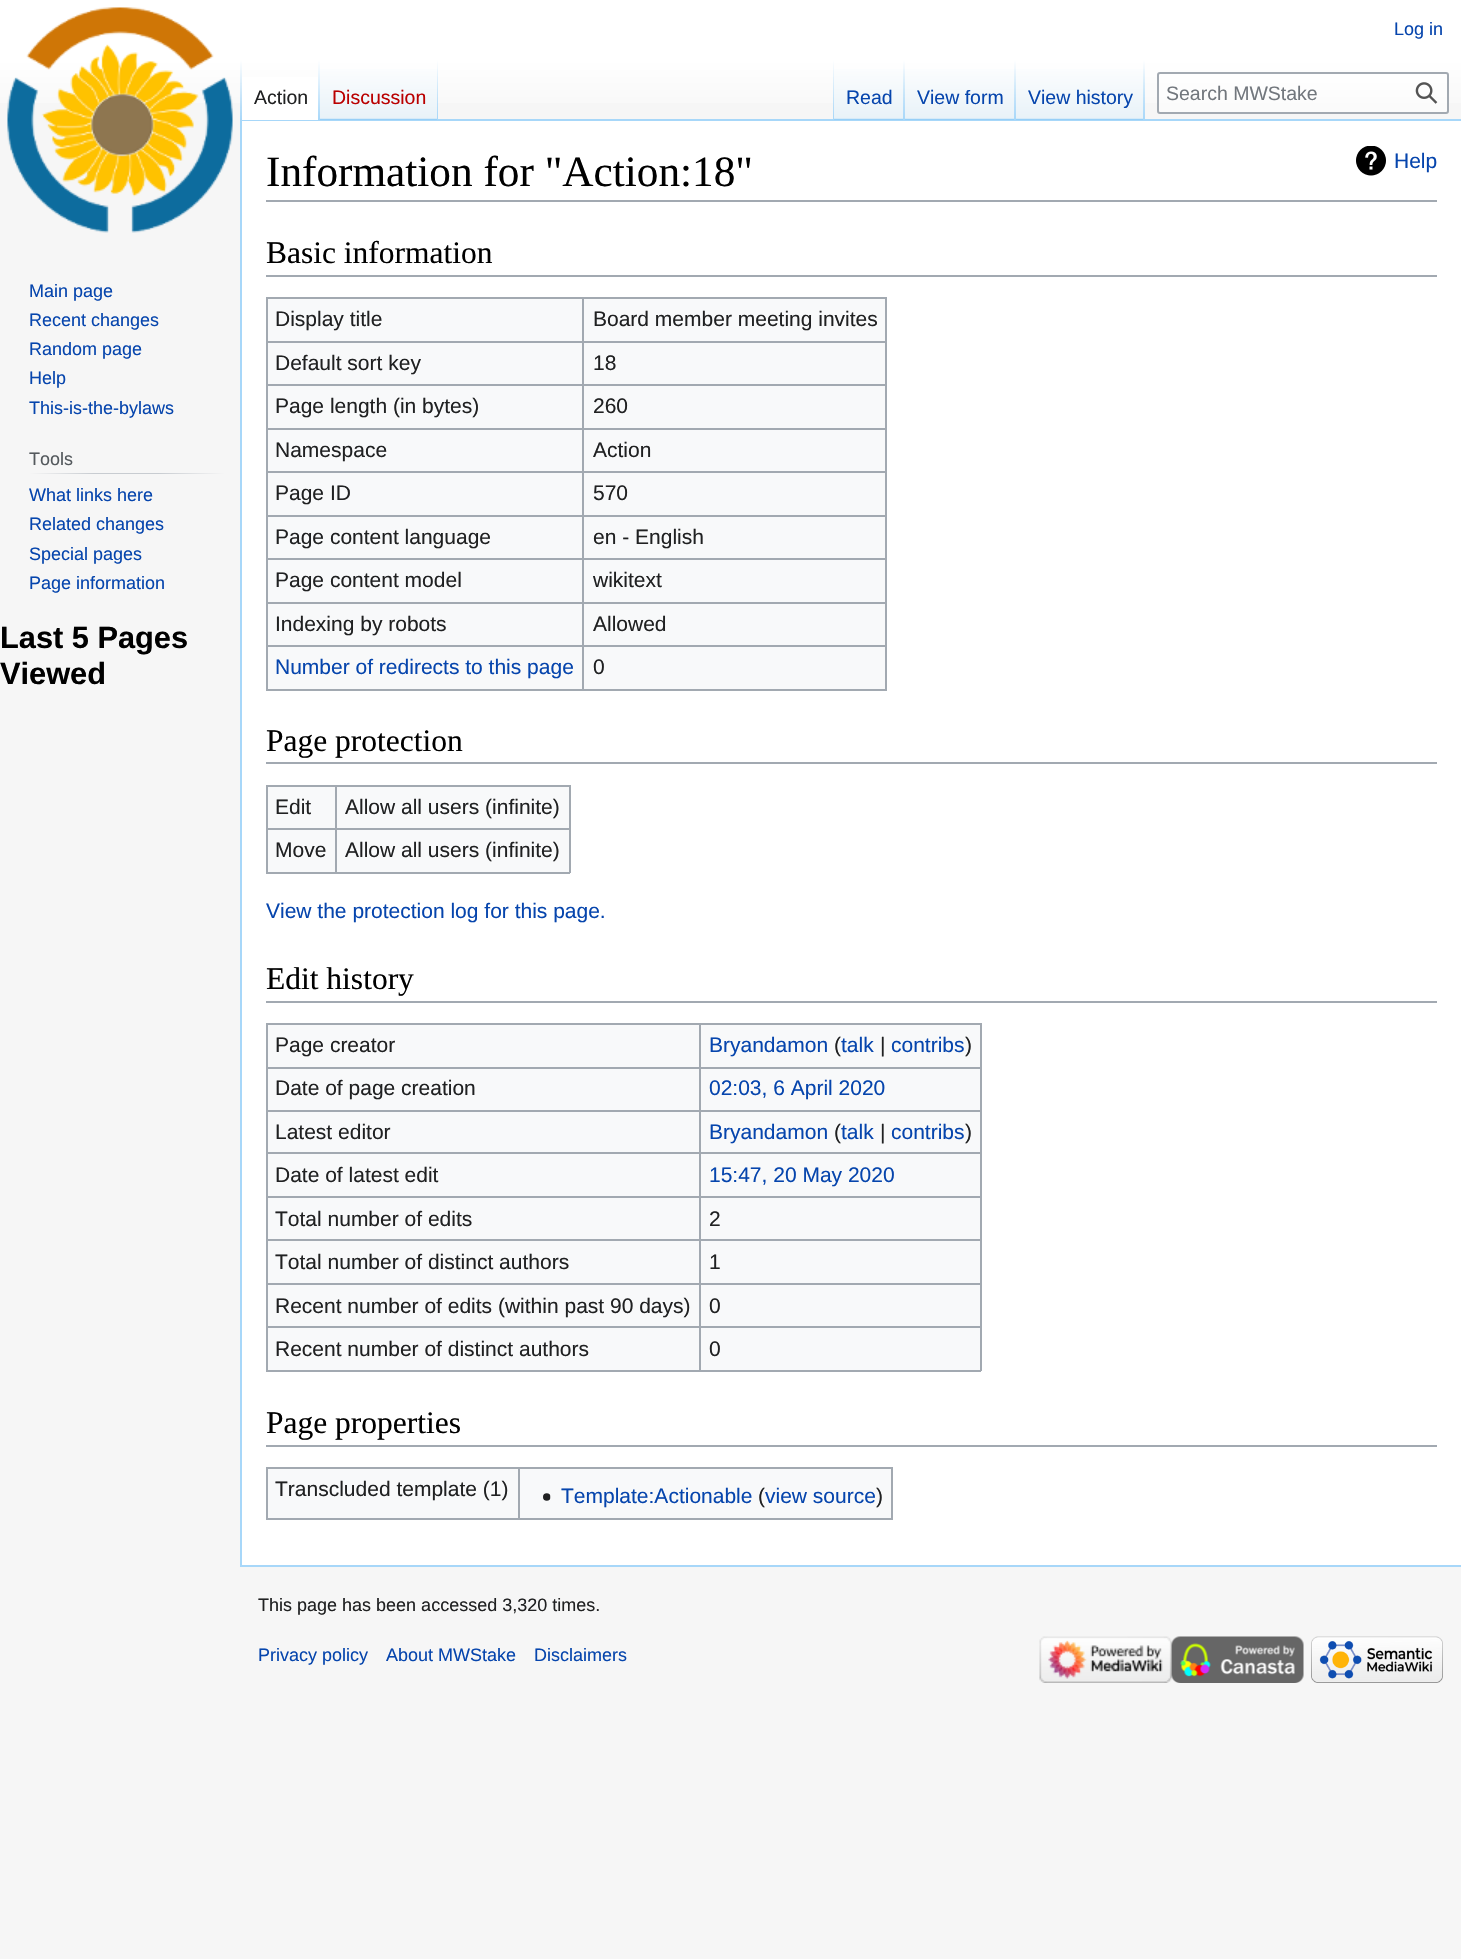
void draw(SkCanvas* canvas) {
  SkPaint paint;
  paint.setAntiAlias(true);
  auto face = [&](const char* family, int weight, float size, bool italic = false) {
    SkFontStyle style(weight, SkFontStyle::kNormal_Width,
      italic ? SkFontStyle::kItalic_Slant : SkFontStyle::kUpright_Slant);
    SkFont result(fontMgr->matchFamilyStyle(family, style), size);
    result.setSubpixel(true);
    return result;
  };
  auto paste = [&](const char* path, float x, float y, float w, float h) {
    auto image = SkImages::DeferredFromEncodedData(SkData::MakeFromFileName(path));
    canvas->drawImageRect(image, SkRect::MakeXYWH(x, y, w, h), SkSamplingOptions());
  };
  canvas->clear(0xfff6f6f6);
  {
    const SkColor colors[] = {0xffffffff, 0xfff6f6f6};
    const float stops[] = {0.5f, 1};
    const SkPoint ends[] = {{731, 0}, {731, 120}};
    paint.setShader(SkGradientShader::MakeLinear(ends, colors, stops, 2, SkTileMode::kClamp));
    paint.setAlpha(255);
  }
  canvas->drawRect(SkRect::MakeXYWH(0, 0, 1461, 103), paint);
  paint.setShader(nullptr);
  {
    const struct { float x, y, w, h; SkColor color; } items[] = {
      {240, 119, 1221, 2, 0xffa7d7f9},
      {240, 1565, 1221, 2, 0xffa7d7f9},
      {240, 119, 2, 1447, 0xffa7d7f9},
    };
    for (auto [x, y, w, h, color] : items) {
      paint.setColor(color);
      canvas->drawRect(SkRect::MakeXYWH(x, y, w, h), paint);
    }
  }
  {
    const SkColor colors[] = {0x00a7d7f9, 0xffa7d7f9};
    const float stops[] = {0, 1};
    const SkPoint ends[] = {{241, 60}, {241, 120}};
    paint.setShader(SkGradientShader::MakeLinear(ends, colors, stops, 2, SkTileMode::kClamp));
    paint.setAlpha(255);
  }
  canvas->drawRect(SkRect::MakeXYWH(240, 60, 2, 60), paint);
  paint.setShader(nullptr);
  paint.setColor(0xffffffff);
  canvas->drawRect(SkRect::MakeXYWH(242, 77, 76, 43), paint);
  {
    const SkColor colors[] = {0xffffffff, 0xffa7d7f9};
    const float stops[] = {0, 1};
    const SkPoint ends[] = {{319, 60}, {319, 120}};
    paint.setShader(SkGradientShader::MakeLinear(ends, colors, stops, 2, SkTileMode::kClamp));
    paint.setAlpha(255);
  }
  canvas->drawRect(SkRect::MakeXYWH(318, 60, 2, 60), paint);
  {
    const SkColor colors[] = {0xff77c1f6, 0xffe8f2f8, 0xffffffff};
    const float stops[] = {0, 0.03f, 1};
    const SkPoint ends[] = {{379, 120}, {379, 60}};
    paint.setShader(SkGradientShader::MakeLinear(ends, colors, stops, 3, SkTileMode::kClamp));
    paint.setAlpha(255);
  }
  canvas->drawRect(SkRect::MakeXYWH(320, 69, 118, 51), paint);
  {
    const SkColor colors[] = {0x00a7d7f9, 0xffa7d7f9};
    const float stops[] = {0, 1};
    const SkPoint ends[] = {{437, 60}, {437, 120}};
    paint.setShader(SkGradientShader::MakeLinear(ends, colors, stops, 2, SkTileMode::kClamp));
    paint.setAlpha(255);
  }
  canvas->drawRect(SkRect::MakeXYWH(437, 60, 1, 60), paint);
  {
    const SkColor colors[] = {0x00a7d7f9, 0xffa7d7f9};
    const float stops[] = {0, 1};
    const SkPoint ends[] = {{833, 60}, {833, 120}};
    paint.setShader(SkGradientShader::MakeLinear(ends, colors, stops, 2, SkTileMode::kClamp));
    paint.setAlpha(255);
  }
  canvas->drawRect(SkRect::MakeXYWH(833, 60, 1, 60), paint);
  {
    const SkColor colors[] = {0xff77c1f6, 0xffe8f2f8, 0xffffffff};
    const float stops[] = {0, 0.03f, 1};
    const SkPoint ends[] = {{869, 120}, {869, 60}};
    paint.setShader(SkGradientShader::MakeLinear(ends, colors, stops, 3, SkTileMode::kClamp));
    paint.setAlpha(255);
  }
  canvas->drawRect(SkRect::MakeXYWH(834, 69, 71, 51), paint);
  {
    const SkColor colors[] = {0x00a7d7f9, 0xffa7d7f9};
    const float stops[] = {0, 1};
    const SkPoint ends[] = {{904, 60}, {904, 120}};
    paint.setShader(SkGradientShader::MakeLinear(ends, colors, stops, 2, SkTileMode::kClamp));
    paint.setAlpha(255);
  }
  canvas->drawRect(SkRect::MakeXYWH(903, 60, 2, 60), paint);
  {
    const SkColor colors[] = {0xff77c1f6, 0xffe8f2f8, 0xffffffff};
    const float stops[] = {0, 0.03f, 1};
    const SkPoint ends[] = {{960, 120}, {960, 60}};
    paint.setShader(SkGradientShader::MakeLinear(ends, colors, stops, 3, SkTileMode::kClamp));
    paint.setAlpha(255);
  }
  canvas->drawRect(SkRect::MakeXYWH(905, 69, 111, 51), paint);
  {
    const SkColor colors[] = {0x00a7d7f9, 0xffa7d7f9};
    const float stops[] = {0, 1};
    const SkPoint ends[] = {{1015, 60}, {1015, 120}};
    paint.setShader(SkGradientShader::MakeLinear(ends, colors, stops, 2, SkTileMode::kClamp));
    paint.setAlpha(255);
  }
  canvas->drawRect(SkRect::MakeXYWH(1014, 60, 2, 60), paint);
  {
    const SkColor colors[] = {0xff77c1f6, 0xffe8f2f8, 0xffffffff};
    const float stops[] = {0, 0.03f, 1};
    const SkPoint ends[] = {{1080, 120}, {1080, 60}};
    paint.setShader(SkGradientShader::MakeLinear(ends, colors, stops, 3, SkTileMode::kClamp));
    paint.setAlpha(255);
  }
  canvas->drawRect(SkRect::MakeXYWH(1016, 69, 129, 51), paint);
  {
    const SkColor colors[] = {0x00a7d7f9, 0xffa7d7f9};
    const float stops[] = {0, 1};
    const SkPoint ends[] = {{1144, 60}, {1144, 120}};
    paint.setShader(SkGradientShader::MakeLinear(ends, colors, stops, 2, SkTileMode::kClamp));
    paint.setAlpha(255);
  }
  canvas->drawRect(SkRect::MakeXYWH(1143, 60, 2, 60), paint);
  paint.setShader(nullptr);
  paint.setColor(0x80ffffff);
  canvas->drawRoundRect(SkRect::MakeXYWH(1158, 73, 290, 40), 2, 2, paint);
  paint.setStroke(true);
  paint.setStrokeWidth(2);
  paint.setColor(0xffa2a9b1);
  canvas->drawRoundRect(SkRect::MakeXYWH(1158, 73, 290, 40), 2, 2, paint);
  paste("img/1.png", 1415, 82, 23, 22);
  paste("img/2.png", 7, 7, 226, 226);
  paint.setStroke(false);
  {
    const SkColor colors[] = {0xfff6f6f6, 0xffc8ccd1, 0xffc8ccd1, 0xfff6f6f6};
    const float stops[] = {0, 0.33f, 0.66f, 1};
    const SkPoint ends[] = {{29, 473}, {225, 473}};
    paint.setShader(SkGradientShader::MakeLinear(ends, colors, stops, 4, SkTileMode::kClamp));
    paint.setAlpha(255);
  }
  canvas->drawRect(SkRect::MakeXYWH(29, 473, 196, 1), paint);
  paint.setShader(nullptr);
  paint.setColor(0xffffffff);
  canvas->drawRect(SkRect::MakeXYWH(242, 121, 1219, 1444), paint);
  paint.setColor(0xffa2a9b1);
  canvas->drawRect(SkRect::MakeXYWH(266, 200, 1171, 2), paint);
  paste("img/3.png", 1356, 146, 30, 30);
  {
    const struct { float x, y, w, h; SkColor color; } items[] = {
      {266, 275, 1171, 2, 0xffa2a9b1},
      {268, 299, 617, 390, 0xfff8f9fa},
      {266, 297, 621, 2, 0xffa2a9b1},
      {885, 297, 2, 393, 0xffa2a9b1},
      {266, 689, 621, 2, 0xffa2a9b1},
      {266, 297, 2, 393, 0xffa2a9b1},
      {582, 341, 305, 2, 0xffa2a9b1},
      {582, 384, 305, 2, 0xffa2a9b1},
      {582, 428, 305, 2, 0xffa2a9b1},
      {582, 471, 305, 2, 0xffa2a9b1},
      {582, 515, 305, 2, 0xffa2a9b1},
      {582, 558, 305, 2, 0xffa2a9b1},
      {582, 602, 305, 2, 0xffa2a9b1},
      {582, 645, 305, 2, 0xffa2a9b1},
      {582, 645, 2, 45, 0xffa2a9b1},
      {266, 645, 318, 2, 0xffa2a9b1},
      {582, 602, 2, 45, 0xffa2a9b1},
      {266, 602, 318, 2, 0xffa2a9b1},
      {582, 558, 2, 45, 0xffa2a9b1},
      {266, 558, 318, 2, 0xffa2a9b1},
      {582, 515, 2, 45, 0xffa2a9b1},
      {266, 515, 318, 2, 0xffa2a9b1},
      {582, 471, 2, 45, 0xffa2a9b1},
      {266, 471, 318, 2, 0xffa2a9b1},
      {582, 428, 2, 45, 0xffa2a9b1},
      {266, 428, 318, 2, 0xffa2a9b1},
      {582, 384, 2, 45, 0xffa2a9b1},
      {266, 384, 318, 2, 0xffa2a9b1},
      {582, 341, 2, 45, 0xffa2a9b1},
      {266, 341, 318, 2, 0xffa2a9b1},
      {582, 297, 2, 45, 0xffa2a9b1},
      {266, 762, 1171, 2, 0xffa2a9b1},
      {268, 787, 301, 85, 0xfff8f9fa},
      {266, 785, 304, 2, 0xffa2a9b1},
      {569, 785, 2, 88, 0xffa2a9b1},
      {266, 872, 304, 2, 0xffa2a9b1},
      {266, 785, 2, 88, 0xffa2a9b1},
      {335, 828, 235, 2, 0xffa2a9b1},
      {335, 828, 2, 45, 0xffa2a9b1},
      {266, 828, 70, 2, 0xffa2a9b1},
      {335, 785, 2, 45, 0xffa2a9b1},
      {266, 1001, 1171, 2, 0xffa2a9b1},
      {268, 1025, 712, 345, 0xfff8f9fa},
      {266, 1023, 715, 2, 0xffa2a9b1},
      {980, 1023, 2, 348, 0xffa2a9b1},
      {266, 1370, 715, 2, 0xffa2a9b1},
      {266, 1023, 2, 348, 0xffa2a9b1},
      {699, 1067, 282, 2, 0xffa2a9b1},
      {699, 1110, 282, 2, 0xffa2a9b1},
      {699, 1152, 282, 2, 0xffa2a9b1},
      {699, 1196, 282, 2, 0xffa2a9b1},
      {699, 1239, 282, 2, 0xffa2a9b1},
      {699, 1283, 282, 2, 0xffa2a9b1},
      {699, 1326, 282, 2, 0xffa2a9b1},
      {699, 1326, 2, 45, 0xffa2a9b1},
      {266, 1326, 435, 2, 0xffa2a9b1},
      {699, 1283, 2, 45, 0xffa2a9b1},
      {266, 1283, 435, 2, 0xffa2a9b1},
      {699, 1239, 2, 45, 0xffa2a9b1},
      {266, 1239, 435, 2, 0xffa2a9b1},
      {699, 1196, 2, 45, 0xffa2a9b1},
      {266, 1196, 435, 2, 0xffa2a9b1},
      {699, 1152, 2, 45, 0xffa2a9b1},
      {266, 1152, 435, 2, 0xffa2a9b1},
      {699, 1110, 2, 44, 0xffa2a9b1},
      {266, 1110, 435, 2, 0xffa2a9b1},
      {699, 1067, 2, 45, 0xffa2a9b1},
      {266, 1067, 435, 2, 0xffa2a9b1},
      {699, 1023, 2, 45, 0xffa2a9b1},
      {266, 1445, 1171, 2, 0xffa2a9b1},
      {268, 1469, 623, 49, 0xfff8f9fa},
      {266, 1467, 627, 2, 0xffa2a9b1},
      {891, 1467, 2, 53, 0xffa2a9b1},
      {266, 1518, 627, 2, 0xffa2a9b1},
      {266, 1467, 2, 53, 0xffa2a9b1},
      {518, 1467, 2, 53, 0xffa2a9b1},
    };
    for (auto [x, y, w, h, color] : items) {
      paint.setColor(color);
      canvas->drawRect(SkRect::MakeXYWH(x, y, w, h), paint);
    }
  }
  paste("img/4.png", 543, 1493, 8, 8);
  paste("img/5.png", 1039, 1636, 133, 47);
  paste("img/6.png", 1171, 1636, 133, 47);
  paste("img/7.png", 1311, 1636, 132, 47);
  auto f0 = face("Liberation Sans", 400, 18);
  paint.setColor(0xff0645ad);
  canvas->drawString("Log in", 1394, 35, f0, paint);
  auto f1 = face("Liberation Sans", 400, 19.5f);
  paint.setColor(0xff202122);
  canvas->drawString("Action", 254, 104, f1, paint);
  paint.setColor(0xffba0000);
  canvas->drawString("Discussion", 332, 104, f1, paint);
  paint.setColor(0xff0645ad);
  {
    const struct { const char* s; float x, y; } items[] = {
      {"Read", 846, 104},
      {"View form", 917, 104},
      {"View history", 1028, 104},
    };
    for (auto [s, x, y] : items) {
      canvas->drawString(s, x, y, f1, paint);
    }
  }
  paint.setColor(0xff72777d);
  canvas->drawString("Search MWStake", 1166, 100, f1, paint);
  paint.setColor(0xff0645ad);
  {
    const struct { const char* s; float x, y; } items[] = {
      {"Main page", 29, 297},
      {"Recent changes", 29, 326},
      {"Random page", 29, 355},
      {"Help", 29, 384},
      {"This-is-the-bylaws", 29, 414},
    };
    for (auto [s, x, y] : items) {
      canvas->drawString(s, x, y, f0, paint);
    }
  }
  paint.setColor(0xff54595d);
  canvas->drawString("Tools", 29, 465, f0, paint);
  paint.setColor(0xff0645ad);
  {
    const struct { const char* s; float x, y; } items[] = {
      {"What links here", 29, 501},
      {"Related changes", 29, 530},
      {"Special pages", 29, 560},
      {"Page information", 29, 589},
    };
    for (auto [s, x, y] : items) {
      canvas->drawString(s, x, y, f0, paint);
    }
  }
  auto f2 = face("Liberation Sans", 700, 30.75f);
  paint.setColor(0xff000000);
  canvas->drawString("Last 5 Pages", 0, 648, f2, paint);
  canvas->drawString("Viewed", 0, 684, f2, paint);
  auto f3 = face("Liberation Serif", 400, 43.25f);
  canvas->drawString("Information for \"Action:18\"", 266, 186, f3, paint);
  auto f4 = face("Liberation Sans", 400, 21);
  paint.setColor(0xff0645ad);
  canvas->drawString("Help", 1394, 168, f4, paint);
  auto f5 = face("Liberation Serif", 400, 31.5f);
  paint.setColor(0xff000000);
  canvas->drawString("Basic information", 266, 263, f5, paint);
  paint.setColor(0xff202122);
  {
    const struct { const char* s; float x, y; } items[] = {
      {"Display title", 275, 326},
      {"Board member meeting invites", 593, 326},
      {"Default sort key", 275, 370},
      {"18", 593, 370},
      {"Page length (in bytes)", 275, 413},
      {"260", 593, 413},
      {"Namespace", 275, 457},
      {"Action", 593, 457},
      {"Page ID", 275, 500},
      {"570", 593, 500},
      {"Page content language", 275, 544},
      {"en - English", 593, 544},
      {"Page content model", 275, 587},
      {"wikitext", 593, 587},
      {"Indexing by robots", 275, 631},
      {"Allowed", 593, 631},
    };
    for (auto [s, x, y] : items) {
      canvas->drawString(s, x, y, f4, paint);
    }
  }
  paint.setColor(0xff0645ad);
  canvas->drawString("Number of redirects to this page", 275, 674, f4, paint);
  paint.setColor(0xff202122);
  canvas->drawString("0", 593, 674, f4, paint);
  paint.setColor(0xff000000);
  canvas->drawString("Page protection", 266, 751, f5, paint);
  paint.setColor(0xff202122);
  {
    const struct { const char* s; float x, y; } items[] = {
      {"Edit", 275, 814},
      {"Allow all users (infinite)", 345, 814},
      {"Move", 275, 857},
      {"Allow all users (infinite)", 345, 857},
    };
    for (auto [s, x, y] : items) {
      canvas->drawString(s, x, y, f4, paint);
    }
  }
  paint.setColor(0xff0645ad);
  canvas->drawString("View the protection log for this page.", 266, 918, f4, paint);
  paint.setColor(0xff000000);
  canvas->drawString("Edit history", 266, 989, f5, paint);
  paint.setColor(0xff202122);
  canvas->drawString("Page creator", 275, 1052, f4, paint);
  paint.setColor(0xff0645ad);
  canvas->drawString("Bryandamon", 709, 1052, f4, paint);
  paint.setColor(0xff202122);
  canvas->drawString("(", 834, 1052, f4, paint);
  paint.setColor(0xff0645ad);
  canvas->drawString("talk", 841, 1052, f4, paint);
  paint.setColor(0xff202122);
  canvas->drawString("|", 880, 1052, f4, paint);
  paint.setColor(0xff0645ad);
  canvas->drawString("contribs", 891, 1052, f4, paint);
  paint.setColor(0xff202122);
  canvas->drawString(")", 965, 1052, f4, paint);
  canvas->drawString("Date of page creation", 275, 1095, f4, paint);
  paint.setColor(0xff0645ad);
  canvas->drawString("02:03, 6 April 2020", 709, 1095, f4, paint);
  paint.setColor(0xff202122);
  canvas->drawString("Latest editor", 275, 1139, f4, paint);
  paint.setColor(0xff0645ad);
  canvas->drawString("Bryandamon", 709, 1139, f4, paint);
  paint.setColor(0xff202122);
  canvas->drawString("(", 834, 1139, f4, paint);
  paint.setColor(0xff0645ad);
  canvas->drawString("talk", 841, 1139, f4, paint);
  paint.setColor(0xff202122);
  canvas->drawString("|", 880, 1139, f4, paint);
  paint.setColor(0xff0645ad);
  canvas->drawString("contribs", 891, 1139, f4, paint);
  paint.setColor(0xff202122);
  canvas->drawString(")", 965, 1139, f4, paint);
  canvas->drawString("Date of latest edit", 275, 1182, f4, paint);
  paint.setColor(0xff0645ad);
  canvas->drawString("15:47, 20 May 2020", 709, 1182, f4, paint);
  paint.setColor(0xff202122);
  {
    const struct { const char* s; float x, y; } items[] = {
      {"Total number of edits", 275, 1226},
      {"2", 709, 1226},
      {"Total number of distinct authors", 275, 1269},
      {"1", 709, 1269},
      {"Recent number of edits (within past 90 days)", 275, 1313},
      {"0", 709, 1313},
      {"Recent number of distinct authors", 275, 1356},
      {"0", 709, 1356},
    };
    for (auto [s, x, y] : items) {
      canvas->drawString(s, x, y, f4, paint);
    }
  }
  paint.setColor(0xff000000);
  canvas->drawString("Page properties", 266, 1433, f5, paint);
  paint.setColor(0xff202122);
  canvas->drawString("Transcluded template (1)", 275, 1496, f4, paint);
  paint.setColor(0xff0645ad);
  canvas->drawString("Template:Actionable", 561, 1503, f4, paint);
  paint.setColor(0xff202122);
  canvas->drawString("(", 758, 1503, f4, paint);
  paint.setColor(0xff0645ad);
  canvas->drawString("view source", 765, 1503, f4, paint);
  paint.setColor(0xff202122);
  canvas->drawString(")", 876, 1503, f4, paint);
  canvas->drawString("This page has been accessed 3,320 times.", 258, 1611, f0, paint);
  paint.setColor(0xff0645ad);
  {
    const struct { const char* s; float x, y; } items[] = {
      {"Privacy policy", 258, 1661},
      {"About MWStake", 386, 1661},
      {"Disclaimers", 534, 1661},
    };
    for (auto [s, x, y] : items) {
      canvas->drawString(s, x, y, f0, paint);
    }
  }
}
